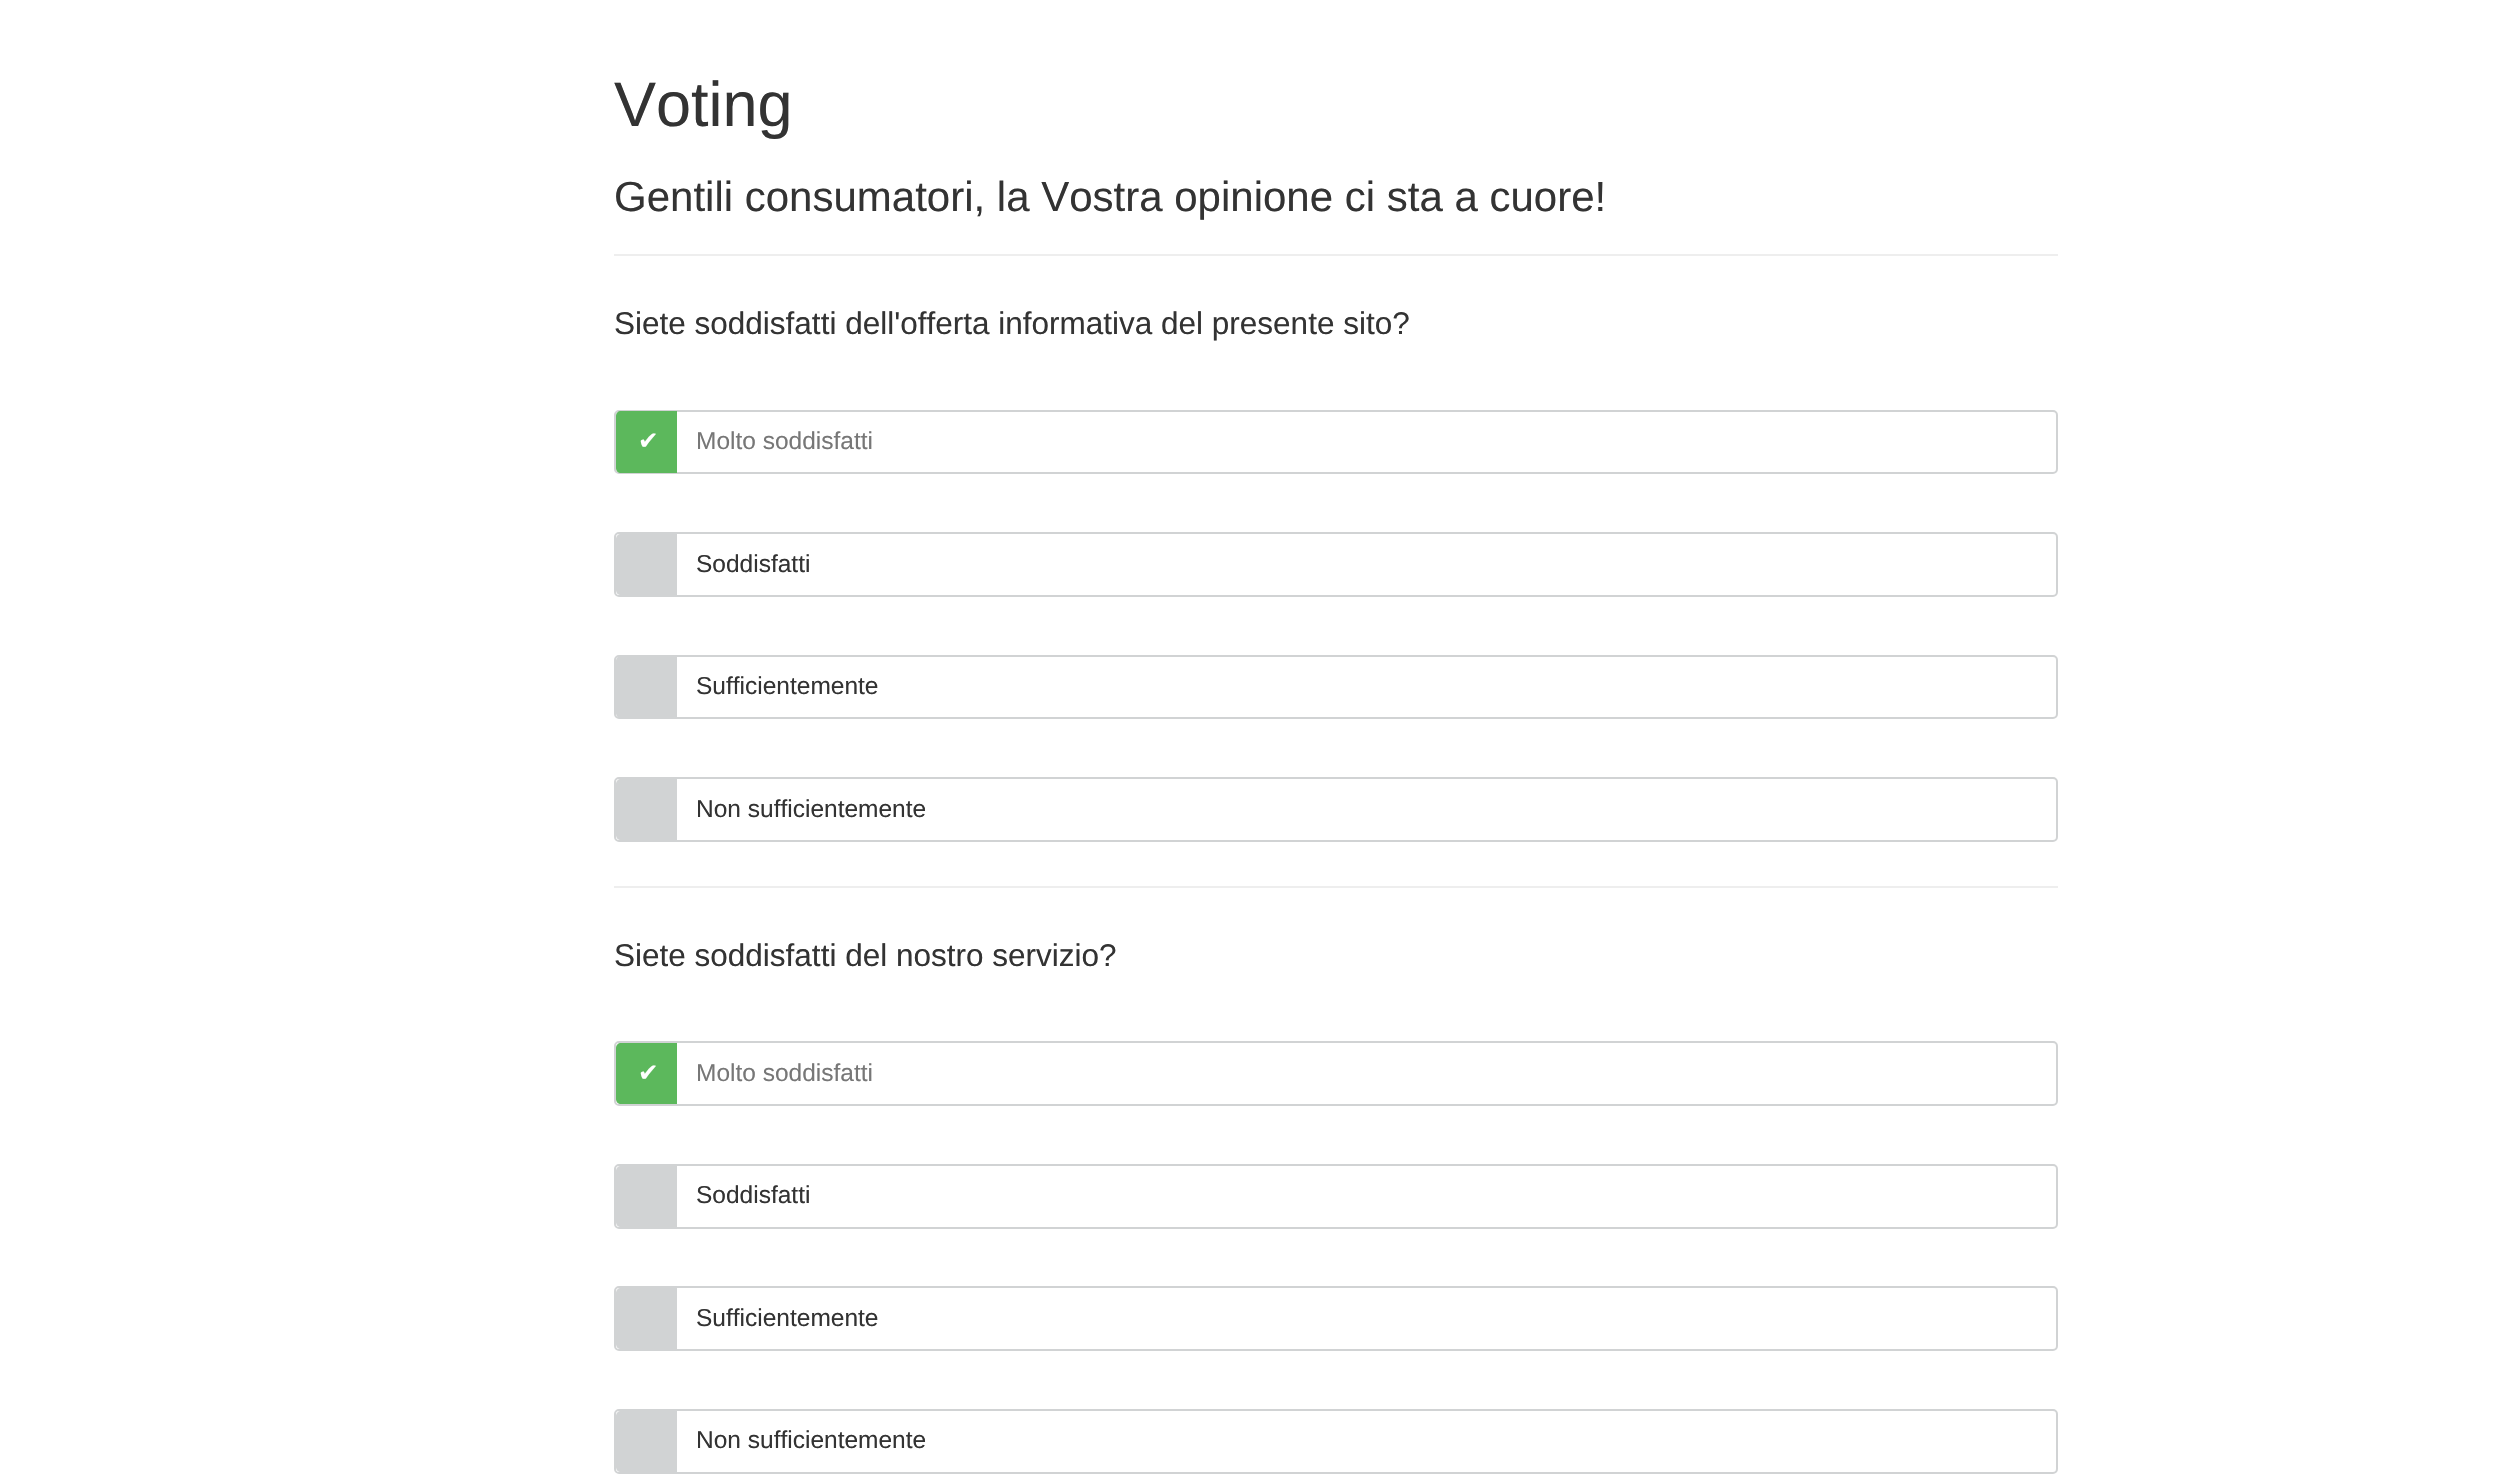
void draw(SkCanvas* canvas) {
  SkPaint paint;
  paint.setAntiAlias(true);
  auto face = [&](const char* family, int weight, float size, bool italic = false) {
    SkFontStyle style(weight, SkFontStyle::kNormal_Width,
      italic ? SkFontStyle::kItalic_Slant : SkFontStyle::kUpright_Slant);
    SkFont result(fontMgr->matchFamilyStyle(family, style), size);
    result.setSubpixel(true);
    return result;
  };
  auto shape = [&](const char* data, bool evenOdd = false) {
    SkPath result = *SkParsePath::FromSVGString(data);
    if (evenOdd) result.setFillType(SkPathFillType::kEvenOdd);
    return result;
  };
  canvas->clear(0xffffffff);
  paint.setColor(0xffeeeeee);
  canvas->drawRect(SkRect::MakeXYWH(614, 254, 1444, 2), paint);
  paint.setStroke(true);
  paint.setStrokeWidth(2);
  paint.setColor(0xffd1d3d4);
  canvas->drawRoundRect(SkRect::MakeXYWH(615, 411, 1442, 62), 4, 4, paint);
  paint.setStroke(false);
  paint.setColor(0xff5cb85c);
  canvas->drawPath(shape("M621 411H677V473H621C618 473 616 471 616 468V416C616 413 618 411 621 411Z"), paint);
  paint.setStroke(true);
  paint.setColor(0xffd1d3d4);
  canvas->drawRoundRect(SkRect::MakeXYWH(615, 533, 1442, 63), 4, 4, paint);
  paint.setStroke(false);
  canvas->drawPath(shape("M621 534H677V595H621C618 595 616 593 616 590V539C616 536 618 534 621 534Z"), paint);
  paint.setStroke(true);
  canvas->drawRoundRect(SkRect::MakeXYWH(615, 656, 1442, 62), 4, 4, paint);
  paint.setStroke(false);
  canvas->drawPath(shape("M621 656H677V718H621C618 718 616 716 616 713V661C616 658 618 656 621 656Z"), paint);
  paint.setStroke(true);
  canvas->drawRoundRect(SkRect::MakeXYWH(615, 778, 1442, 63), 4, 4, paint);
  paint.setStroke(false);
  canvas->drawPath(shape("M621 779H677V840H621C618 840 616 838 616 835V784C616 781 618 779 621 779Z"), paint);
  paint.setColor(0xffeeeeee);
  canvas->drawRect(SkRect::MakeXYWH(614, 886, 1444, 2), paint);
  paint.setStroke(true);
  paint.setColor(0xffd1d3d4);
  canvas->drawRoundRect(SkRect::MakeXYWH(615, 1042, 1442, 63), 4, 4, paint);
  paint.setStroke(false);
  paint.setColor(0xff5cb85c);
  canvas->drawPath(shape("M621 1043H677V1104H621C618 1104 616 1102 616 1099V1048C616 1045 618 1043 621 1043Z"), paint);
  paint.setStroke(true);
  paint.setColor(0xffd1d3d4);
  canvas->drawRoundRect(SkRect::MakeXYWH(615, 1165, 1442, 63), 4, 4, paint);
  paint.setStroke(false);
  canvas->drawPath(shape("M621 1166H677V1227H621C618 1227 616 1225 616 1222V1171C616 1168 618 1166 621 1166Z"), paint);
  paint.setStroke(true);
  canvas->drawRoundRect(SkRect::MakeXYWH(615, 1287, 1442, 63), 4, 4, paint);
  paint.setStroke(false);
  canvas->drawPath(shape("M621 1288H677V1349H621C618 1349 616 1347 616 1344V1293C616 1290 618 1288 621 1288Z"), paint);
  paint.setStroke(true);
  canvas->drawRoundRect(SkRect::MakeXYWH(615, 1410, 1442, 63), 4, 4, paint);
  paint.setStroke(false);
  canvas->drawPath(shape("M621 1411H677V1472H621C618 1472 616 1470 616 1467V1416C616 1413 618 1411 621 1411Z"), paint);
  auto f0 = face("Liberation Sans", 400, 63);
  paint.setColor(0xff333333);
  canvas->drawString("Voting", 614, 126, f0, paint);
  auto f1 = face("Liberation Sans", 400, 42);
  canvas->drawString("Gentili consumatori, la Vostra opinione ci sta a cuore!", 614, 211, f1, paint);
  auto f2 = face("Liberation Sans", 400, 31.5f);
  canvas->drawString("Siete soddisfatti dell'offerta informativa del presente sito?", 614, 334, f2, paint);
  auto f3 = face("DejaVu Sans", 400, 24.5f);
  paint.setColor(0xffffffff);
  canvas->drawString("✔", 638, 449, f3, paint);
  auto f4 = face("Liberation Sans", 400, 24.5f);
  paint.setColor(0xff777777);
  canvas->drawString("Molto soddisfatti", 696, 449, f4, paint);
  paint.setColor(0xff333333);
  {
    const struct { const char* s; float x, y; } items[] = {
      {"Soddisfatti", 696, 572},
      {"Sufficientemente", 696, 694},
      {"Non sufficientemente", 696, 817},
    };
    for (auto [s, x, y] : items) {
      canvas->drawString(s, x, y, f4, paint);
    }
  }
  canvas->drawString("Siete soddisfatti del nostro servizio?", 614, 966, f2, paint);
  paint.setColor(0xffffffff);
  canvas->drawString("✔", 638, 1081, f3, paint);
  paint.setColor(0xff777777);
  canvas->drawString("Molto soddisfatti", 696, 1081, f4, paint);
  paint.setColor(0xff333333);
  {
    const struct { const char* s; float x, y; } items[] = {
      {"Soddisfatti", 696, 1203},
      {"Sufficientemente", 696, 1326},
      {"Non sufficientemente", 696, 1448},
    };
    for (auto [s, x, y] : items) {
      canvas->drawString(s, x, y, f4, paint);
    }
  }
}
